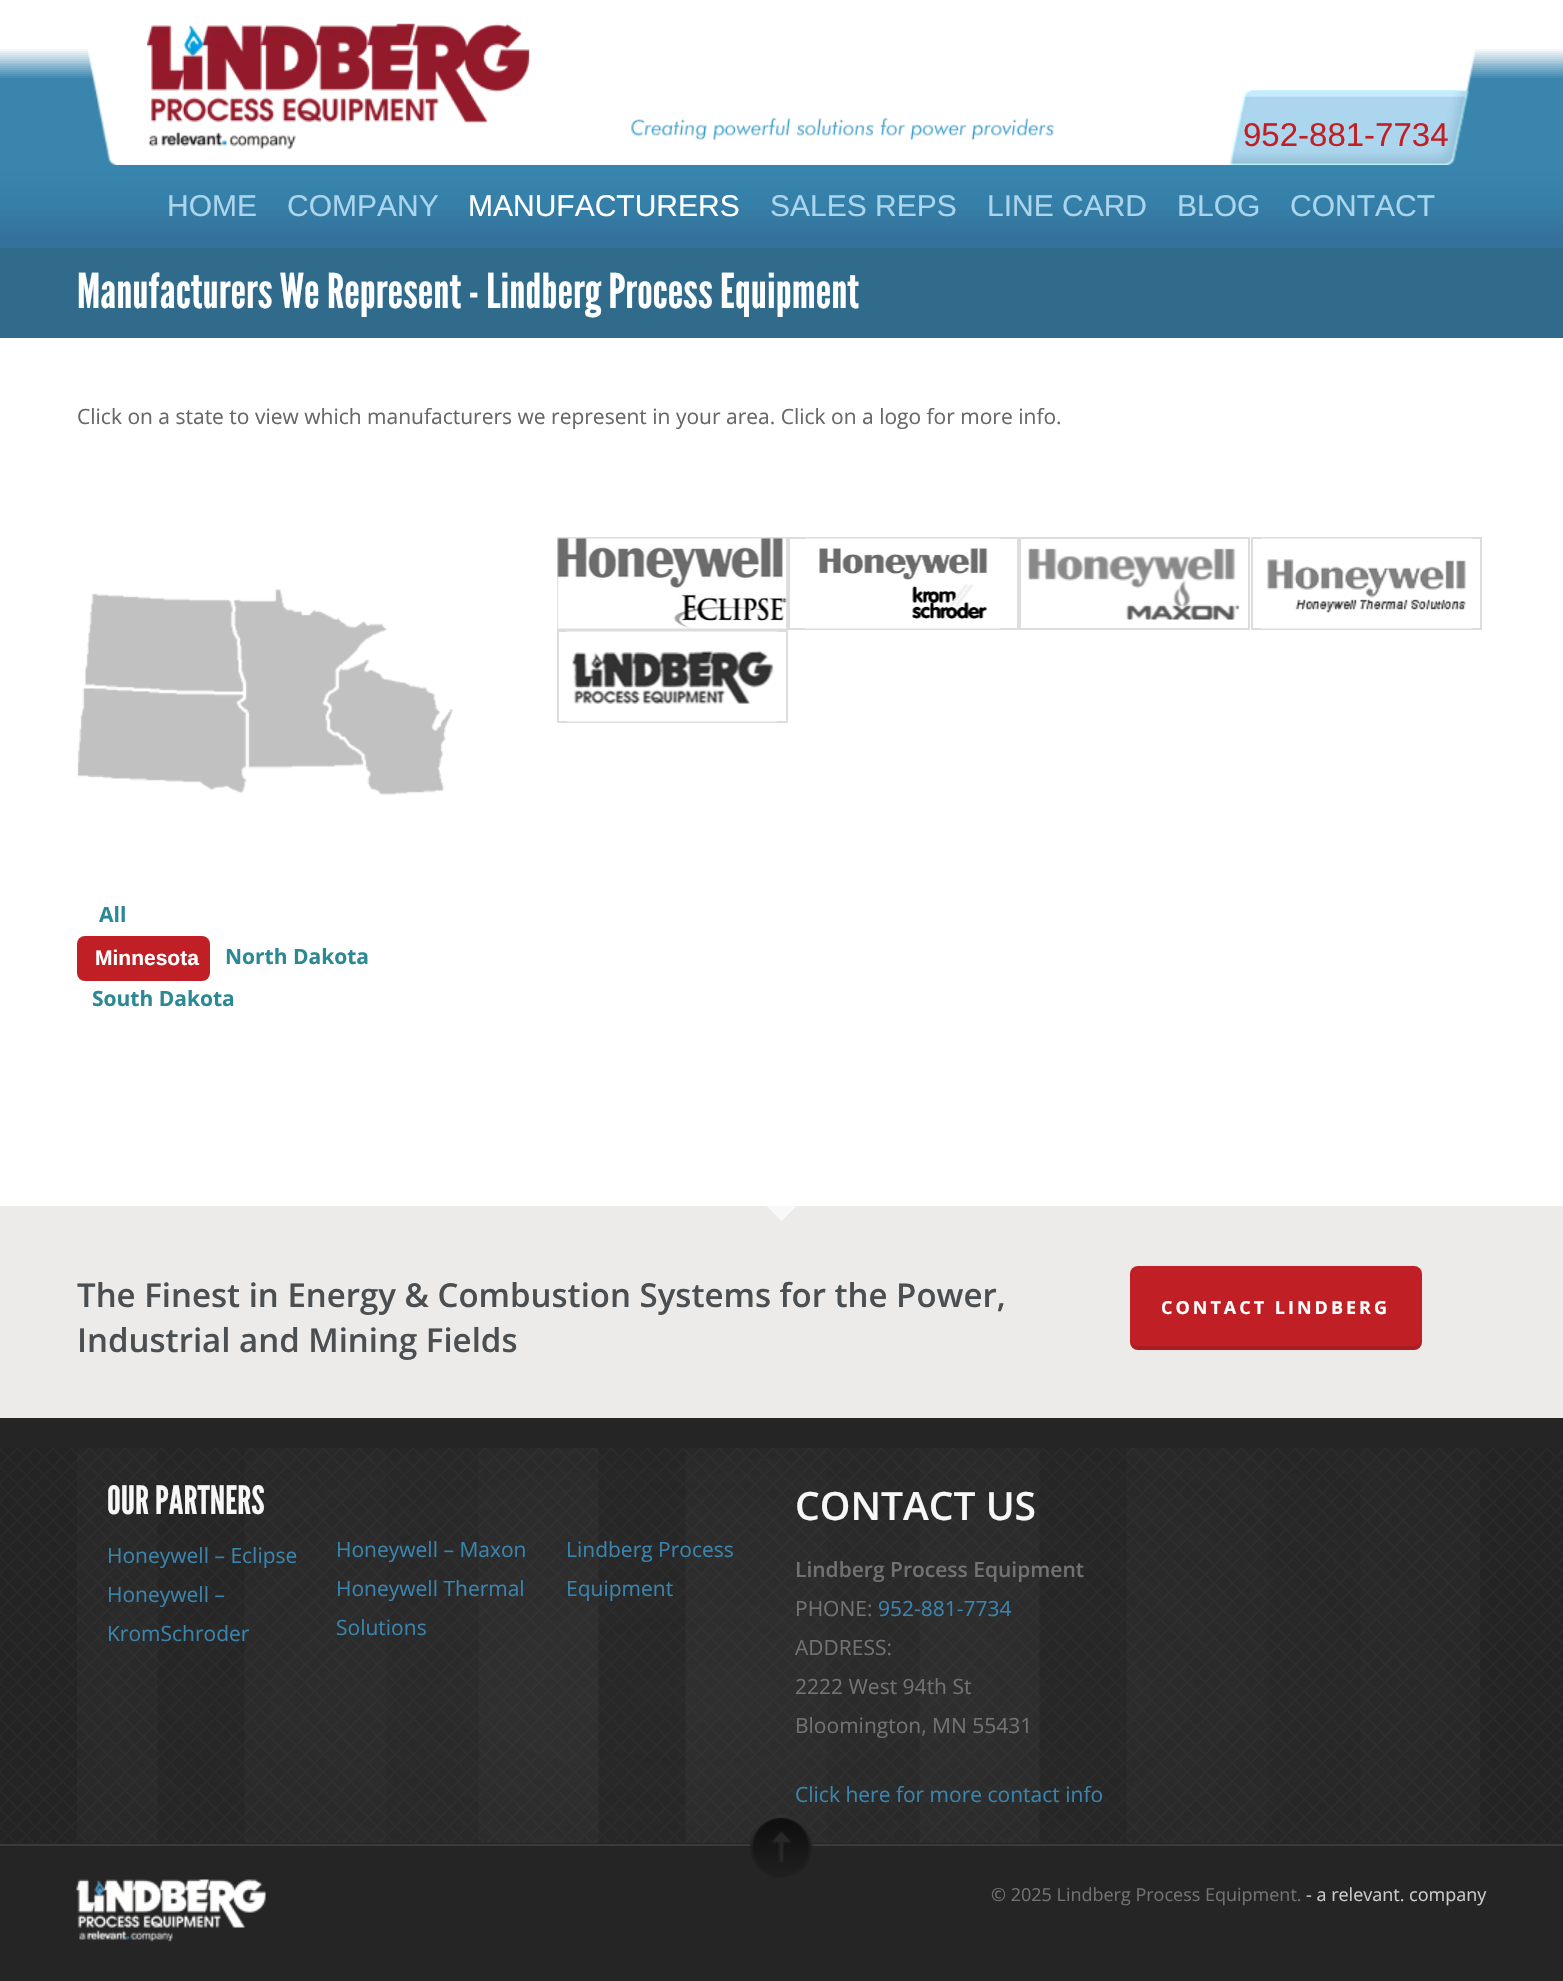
void draw(SkCanvas* canvas) {
  SkPaint paint;
  paint.setAntiAlias(true);
  auto face = [&](const char* family, int weight, float size, bool italic = false) {
    SkFontStyle style(weight, SkFontStyle::kNormal_Width,
      italic ? SkFontStyle::kItalic_Slant : SkFontStyle::kUpright_Slant);
    SkFont result(fontMgr->matchFamilyStyle(family, style), size);
    result.setSubpixel(true);
    return result;
  };
  auto writeSpaced = [&](const char* s, float x, float y, const SkFont& font, const SkPaint& ink, float letter, float word) {
    std::vector<SkGlyphID> glyphs(font.countText(s, strlen(s), SkTextEncoding::kUTF8));
    std::vector<float> xs(glyphs.size());
    font.textToGlyphs(s, strlen(s), SkTextEncoding::kUTF8, glyphs);
    font.getXPos(glyphs, xs, x);
    float extra = 0;
    for (size_t i = 0; i < glyphs.size(); i++) {
      xs[i] += extra;
      extra += letter + word * (glyphs[i] == font.unicharToGlyph(' '));
    }
    canvas->drawTextBlob(SkTextBlob::MakeFromPosHGlyphs(glyphs, xs, y, font), 0, 0, ink);
  };
  auto paste = [&](const char* path, float x, float y, float w, float h) {
    auto image = SkImages::DeferredFromEncodedData(SkData::MakeFromFileName(path));
    canvas->drawImageRect(image, SkRect::MakeXYWH(x, y, w, h), SkSamplingOptions());
  };
  auto shape = [&](const char* data, bool evenOdd = false) {
    SkPath result = *SkParsePath::FromSVGString(data);
    if (evenOdd) result.setFillType(SkPathFillType::kEvenOdd);
    return result;
  };
  canvas->clear(0xffffffff);
  paste("img/1.png", 0, 0, 1563, 248);
  paste("img/2.png", 87, 49, 1389, 116);
  paste("img/3.png", 147, 23, 383, 127);
  paste("img/4.png", 631, 118, 424, 22);
  paint.setColor(0xff306b8c);
  canvas->drawRect(SkRect::MakeXYWH(0, 248, 1563, 90), paint);
  paint.setStroke(true);
  paint.setStrokeWidth(2);
  paint.setColor(0xffdddddd);
  canvas->drawRect(SkRect::MakeXYWH(558, 538, 229, 91), paint);
  paste("img/5.png", 557, 538, 230, 91);
  canvas->drawRect(SkRect::MakeXYWH(789, 538, 229, 91), paint);
  paste("img/6.png", 805, 538, 196, 91);
  canvas->drawRect(SkRect::MakeXYWH(1020, 538, 229, 91), paint);
  paste("img/7.png", 1028, 548, 212, 72);
  canvas->drawRect(SkRect::MakeXYWH(1252, 538, 229, 91), paint);
  paste("img/8.png", 1261, 538, 211, 91);
  canvas->drawRect(SkRect::MakeXYWH(558, 631, 229, 91), paint);
  paste("img/9.png", 566, 631, 211, 91);
  paste("img/10.png", 77, 589, 377, 206);
  paint.setStroke(false);
  paint.setColor(0xffc02025);
  canvas->drawRoundRect(SkRect::MakeXYWH(77, 936, 133, 45), 8, 8, paint);
  paint.setColor(0xff252525);
  canvas->drawRect(SkRect::MakeXYWH(0, 1418, 1563, 563), paint);
  paint.setColor(0xffecebe9);
  canvas->drawRect(SkRect::MakeXYWH(0, 1206, 1563, 212), paint);
  paint.setColor(0xfff8f8f8);
  canvas->drawPath(shape("M766.5 1206H796.5L781.5 1221Z"), paint);
  paint.setColor(0xffc02025);
  canvas->drawRoundRect(SkRect::MakeXYWH(1130, 1266, 292, 84), 8, 8, paint);
  paint.setColor(0x1a000000);
  canvas->drawPath(shape("M1130 1338V1342C1130 1346 1134 1350 1138 1350H1414C1418 1350 1422 1346 1422 1342V1338C1422 1342 1419 1346 1414 1346H1137C1133 1346 1130 1342 1130 1338Z"), paint);
  paste("img/11.png", 0, 1448, 1563, 395);
  paste("img/12.png", 77, 1448, 1403, 395);
  paint.setColor(0xff3b3b3b);
  canvas->drawRect(SkRect::MakeXYWH(0, 1844, 1563, 2), paint);
  paste("img/13.png", 750, 1815, 63, 63);
  paste("img/14.png", 76, 1879, 190, 63);
  auto f0 = face("Liberation Sans", 400, 33);
  paint.setColor(0xffc02025);
  canvas->drawString("952-881-7734", 1243, 146, f0, paint);
  auto f1 = face("Liberation Sans", 400, 30);
  paint.setColor(0xffabd4ed);
  canvas->drawString("HOME", 167, 216, f1, paint);
  canvas->drawString("COMPANY", 287, 216, f1, paint);
  paint.setColor(0xffffffff);
  canvas->drawString("MANUFACTURERS", 468, 216, f1, paint);
  paint.setColor(0xffabd4ed);
  {
    const struct { const char* s; float x, y; } items[] = {
      {"SALES REPS", 770, 216},
      {"LINE CARD", 987, 216},
      {"BLOG", 1177, 216},
      {"CONTACT", 1290, 216},
    };
    for (auto [s, x, y] : items) {
      canvas->drawString(s, x, y, f1, paint);
    }
  }
  auto f2 = face("League Gothic", 400, 48);
  paint.setColor(0xffffffff);
  canvas->drawString("Manufacturers We Represent - Lindberg Process Equipment", 77, 308, f2, paint);
  auto f3 = face("Open Sans", 400, 21);
  paint.setColor(0xff676767);
  canvas->drawString("Click on a state to view which manufacturers we represent in your area. Click on a logo for more info.", 77, 424, f3, paint);
  auto f4 = face("Open Sans", 700, 21);
  paint.setColor(0xff2b8895);
  canvas->drawString("All", 99, 922, f4, paint);
  auto f5 = face("Liberation Sans", 700, 21);
  paint.setColor(0xffffffff);
  canvas->drawString("Minnesota", 95, 965, f5, paint);
  paint.setColor(0xff2b8895);
  canvas->drawString("North Dakota", 225, 964, f4, paint);
  canvas->drawString("South Dakota", 92, 1006, f4, paint);
  auto f6 = face("Open Sans", 600, 33);
  paint.setColor(0xff4b4f52);
  canvas->drawString("The Finest in Energy & Combustion Systems for the Power,", 77, 1307, f6, paint);
  canvas->drawString("Industrial and Mining Fields", 77, 1352, f6, paint);
  auto f7 = face("Open Sans", 700, 18);
  paint.setColor(0xffffffff);
  writeSpaced("CONTACT LINDBERG", 1161, 1314, f7, paint, 3, 0);
  auto f8 = face("League Gothic", 400, 39);
  paint.setColor(0xfff7f7f7);
  canvas->drawString("OUR PARTNERS", 107, 1514, f8, paint);
  paint.setColor(0xff3a84ad);
  {
    const struct { const char* s; float x, y; } items[] = {
      {"Honeywell – Eclipse", 107, 1563},
      {"Honeywell –", 107, 1602},
      {"KromSchroder", 107, 1641},
      {"Honeywell – Maxon", 336, 1557},
      {"Honeywell Thermal", 336, 1596},
      {"Solutions", 336, 1635},
      {"Lindberg Process", 566, 1557},
      {"Equipment", 566, 1596},
    };
    for (auto [s, x, y] : items) {
      canvas->drawString(s, x, y, f3, paint);
    }
  }
  auto f9 = face("Open Sans", 600, 39);
  paint.setColor(0xfff7f7f7);
  canvas->drawString("CONTACT US", 795, 1520, f9, paint);
  auto f10 = face("Open Sans", 600, 21);
  paint.setColor(0xff727272);
  canvas->drawString("Lindberg Process Equipment", 795, 1577, f10, paint);
  canvas->drawString("PHONE:", 795, 1616, f3, paint);
  paint.setColor(0xff3a84ad);
  canvas->drawString("952-881-7734", 878, 1616, f3, paint);
  paint.setColor(0xff727272);
  {
    const struct { const char* s; float x, y; } items[] = {
      {"ADDRESS:", 795, 1655},
      {"2222 West 94th St", 795, 1694},
      {"Bloomington, MN 55431", 795, 1733},
    };
    for (auto [s, x, y] : items) {
      canvas->drawString(s, x, y, f3, paint);
    }
  }
  paint.setColor(0xff3a84ad);
  canvas->drawString("Click here for more contact info", 795, 1802, f3, paint);
  auto f11 = face("Open Sans", 400, 18);
  paint.setColor(0xff727272);
  canvas->drawString("© 2025 Lindberg Process Equipment.", 991, 1901, f11, paint);
  paint.setColor(0xffcccccc);
  canvas->drawString("- a relevant. company", 1306, 1901, f11, paint);
}
